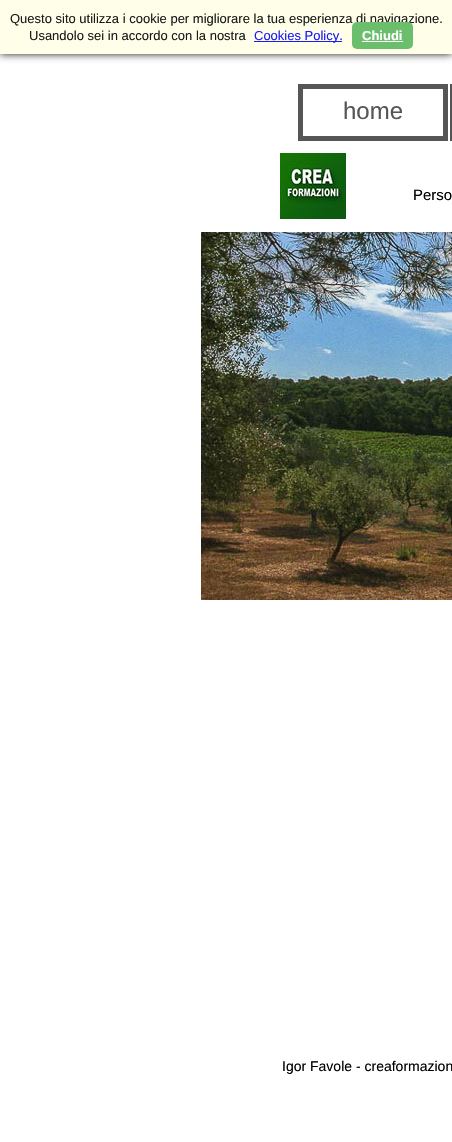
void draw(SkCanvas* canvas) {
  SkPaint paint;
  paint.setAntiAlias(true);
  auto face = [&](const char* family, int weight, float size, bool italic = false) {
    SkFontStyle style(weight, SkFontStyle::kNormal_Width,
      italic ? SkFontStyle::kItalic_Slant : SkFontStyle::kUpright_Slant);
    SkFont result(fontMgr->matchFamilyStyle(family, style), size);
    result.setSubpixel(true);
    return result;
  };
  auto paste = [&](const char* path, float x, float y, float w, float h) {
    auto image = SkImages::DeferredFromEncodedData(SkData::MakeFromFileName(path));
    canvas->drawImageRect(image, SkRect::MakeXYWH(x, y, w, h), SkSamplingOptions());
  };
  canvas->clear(0xffffffff);
  paint.setColor(0xff1a1a1a);
  paint.setMaskFilter(SkMaskFilter::MakeBlur(kNormal_SkBlurStyle, 4));
  canvas->drawRect(SkRect::MakeXYWH(0, 0, 452, 54), paint);
  paint.setMaskFilter(nullptr);
  paint.setColor(0xffffffe9);
  canvas->drawRect(SkRect::MakeXYWH(0, 0, 452, 54), paint);
  paint.setColor(0xff1a1aff);
  canvas->drawRect(SkRect::MakeXYWH(254, 41, 88, 1), paint);
  paint.setStroke(true);
  paint.setStrokeWidth(5);
  paint.setColor(0xff565656);
  canvas->drawRect(SkRect::MakeXYWH(300.5f, 86.5f, 145, 52), paint);
  canvas->drawRect(SkRect::MakeXYWH(452.5f, 86.5f, 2, 52), paint);
  paste("img/1.png", 280, 153, 66, 66);
  paste("img/2.png", 201, 232, 251, 368);
  auto f0 = face("Liberation Sans", 400, 13);
  paint.setStroke(false);
  paint.setColor(0xff1a1a1a);
  canvas->drawString("Questo sito utilizza i cookie per migliorare la tua esperienza di navigazione.", 10, 23, f0, paint);
  canvas->drawString("Usandolo sei in accordo con la nostra", 29, 40, f0, paint);
  paint.setColor(0xff1a1aff);
  canvas->drawString("Cookies Policy.", 254, 40, f0, paint);
  paint.setColor(0xff6bbe6b);
  canvas->drawRoundRect(SkRect::MakeXYWH(352, 22, 61, 27), 5, 5, paint);
  auto f1 = face("Liberation Sans", 700, 13);
  paint.setColor(0xffffffff);
  canvas->drawString("Chiudi", 362, 40, f1, paint);
  canvas->drawRect(SkRect::MakeXYWH(362, 41, 41, 1), paint);
  auto f2 = face("Liberation Sans", 400, 24);
  paint.setColor(0xff565656);
  canvas->drawString("home", 343, 119, f2, paint);
  auto f3 = face("Liberation Sans", 400, 15);
  paint.setColor(0xff000000);
  canvas->drawString("Perso", 413, 200, f3, paint);
  auto f4 = face("Liberation Sans", 400, 14);
  canvas->drawString("Igor Favole - creaformazion", 282, 1071, f4, paint);
}
